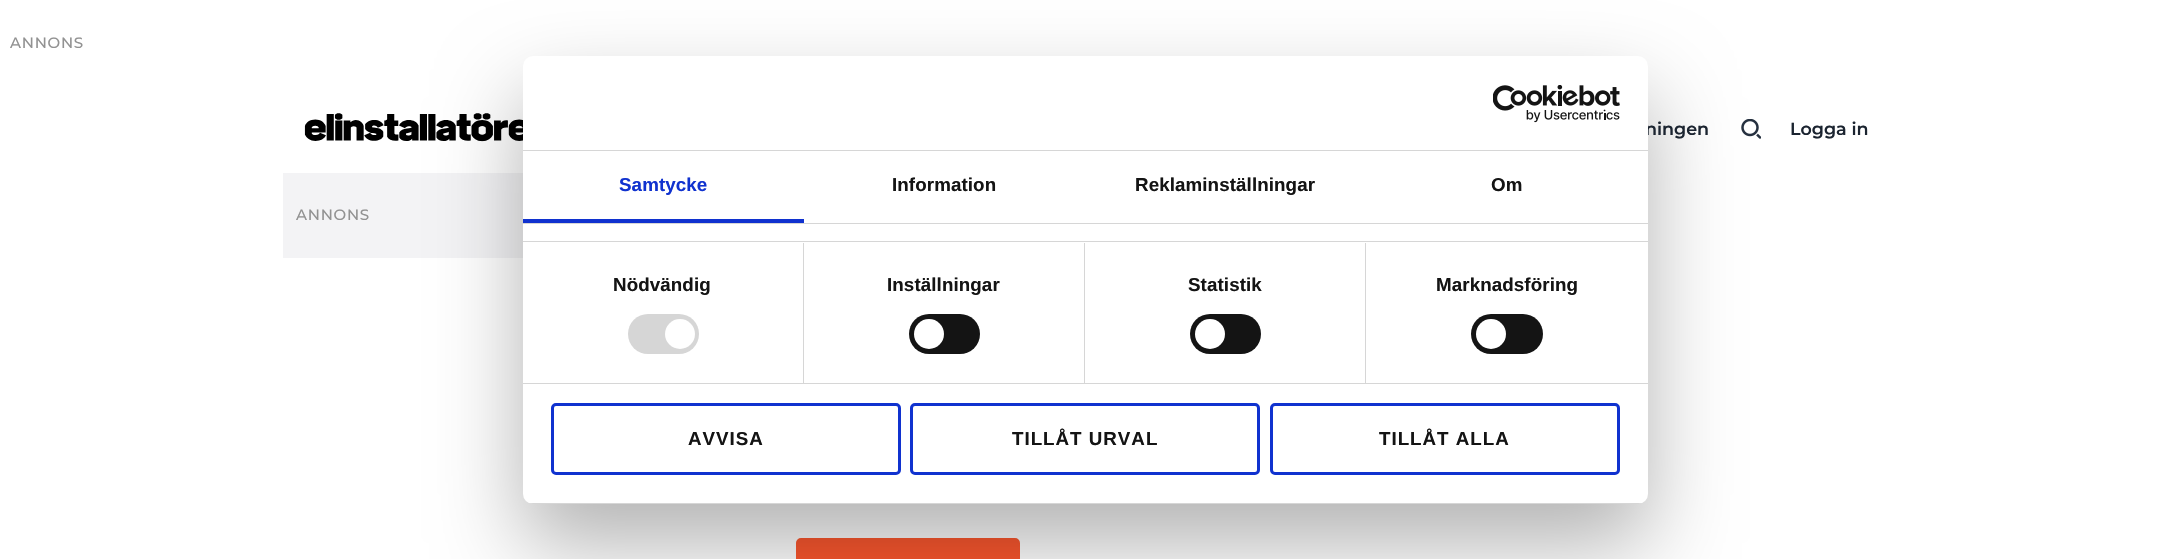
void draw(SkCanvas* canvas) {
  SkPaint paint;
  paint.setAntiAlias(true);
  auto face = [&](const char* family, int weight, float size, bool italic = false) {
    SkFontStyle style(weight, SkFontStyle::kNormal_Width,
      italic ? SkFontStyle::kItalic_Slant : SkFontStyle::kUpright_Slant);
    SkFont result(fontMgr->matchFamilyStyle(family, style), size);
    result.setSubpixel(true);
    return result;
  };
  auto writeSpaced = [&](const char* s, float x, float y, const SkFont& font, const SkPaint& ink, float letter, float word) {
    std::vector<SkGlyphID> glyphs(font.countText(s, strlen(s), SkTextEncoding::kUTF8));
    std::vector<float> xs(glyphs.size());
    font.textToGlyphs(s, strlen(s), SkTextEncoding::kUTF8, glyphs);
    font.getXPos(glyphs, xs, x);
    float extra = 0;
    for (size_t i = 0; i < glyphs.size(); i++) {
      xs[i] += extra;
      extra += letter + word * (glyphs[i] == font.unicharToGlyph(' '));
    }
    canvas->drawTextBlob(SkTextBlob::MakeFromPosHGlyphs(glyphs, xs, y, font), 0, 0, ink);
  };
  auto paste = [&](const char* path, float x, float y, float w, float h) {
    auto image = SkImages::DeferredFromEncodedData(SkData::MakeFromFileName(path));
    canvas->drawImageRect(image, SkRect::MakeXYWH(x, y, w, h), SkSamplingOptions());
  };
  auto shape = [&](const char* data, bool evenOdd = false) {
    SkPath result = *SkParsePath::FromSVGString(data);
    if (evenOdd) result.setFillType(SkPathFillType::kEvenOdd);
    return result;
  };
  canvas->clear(0xffffffff);
  paste("img/1.png", 304, 113, 219, 29);
  paste("img/2.png", 1741, 119, 20, 20);
  paint.setColor(0xfff3f3f5);
  canvas->drawRect(SkRect::MakeXYWH(283, 173, 240, 85), paint);
  paint.setColor(0xfffc572e);
  canvas->drawRoundRect(SkRect::MakeXYWH(797.5f, 539.5f, 221, 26), 3.5f, 3.5f, paint);
  paint.setStroke(true);
  paint.setStrokeWidth(3);
  canvas->drawRoundRect(SkRect::MakeXYWH(797.5f, 539.5f, 221, 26), 3.5f, 3.5f, paint);
  paint.setStroke(false);
  paint.setColor(0x4d000000);
  paint.setMaskFilter(SkMaskFilter::MakeBlur(kNormal_SkBlurStyle, 42.5f));
  canvas->drawRoundRect(SkRect::MakeXYWH(523, 96, 1125, 448), 10, 10, paint);
  paint.setMaskFilter(nullptr);
  auto f0 = face("Montserrat", 500, 15);
  paint.setColor(0xff929292);
  writeSpaced("ANNONS", 10, 48, f0, paint, 0.75f, 0);
  auto f1 = face("Montserrat", 600, 17.5f);
  paint.setColor(0xff1b2430);
  canvas->drawString("ningen", 1645, 135, f1, paint);
  canvas->drawString("Logga in", 1790, 135, f1, paint);
  paint.setColor(0xff929292);
  writeSpaced("ANNONS", 296, 220, f0, paint, 0.75f, 0);
  paint.setColor(0xffffffff);
  canvas->drawRoundRect(SkRect::MakeXYWH(523, 56, 1125, 448), 10, 10, paint);
  paint.setColor(0xffd6d6d6);
  canvas->drawRect(SkRect::MakeXYWH(523, 150, 1125, 1), paint);
  paste("img/3.png", 1493, 85, 127, 38);
  canvas->drawRect(SkRect::MakeXYWH(523, 223, 1125, 1), paint);
  paint.setColor(0xff1032cf);
  canvas->drawRect(SkRect::MakeXYWH(523, 219, 281, 4), paint);
  auto f2 = face("Liberation Sans", 700, 18.75f);
  writeSpaced("Samtycke", 619, 191, f2, paint, 0.1f, 0);
  paint.setColor(0xff141414);
  {
    const struct { const char* s; float x, y; } items[] = {
      {"Information", 892, 191},
      {"Reklaminställningar", 1135, 191},
      {"Om", 1491, 191},
    };
    for (auto [s, x, y] : items) {
      writeSpaced(s, x, y, f2, paint, 0.1f, 0);
    }
  }
  {
    const struct { float x, y, w, h; SkColor color; } items[] = {
      {523, 241, 1125, 1, 0xffd6d6d6},
      {523, 383, 1125, 1, 0xffd6d6d6},
      {803, 243, 1, 140, 0xffd6d6d6},
    };
    for (auto [x, y, w, h, color] : items) {
      paint.setColor(color);
      canvas->drawRect(SkRect::MakeXYWH(x, y, w, h), paint);
    }
  }
  paint.setColor(0xff141414);
  writeSpaced("Nödvändig", 613, 291, f2, paint, 0.1f, 0);
  paint.setColor(0xffd6d6d6);
  canvas->drawRoundRect(SkRect::MakeXYWH(628, 314, 71, 40), 20, 20, paint);
  paint.setColor(0xffffffff);
  canvas->drawCircle(680, 334, 15, paint);
  paint.setColor(0xffd6d6d6);
  canvas->drawRect(SkRect::MakeXYWH(1084, 243, 1, 140), paint);
  paint.setColor(0xff141414);
  writeSpaced("Inställningar", 887, 291, f2, paint, 0.1f, 0);
  canvas->drawRoundRect(SkRect::MakeXYWH(909, 314, 71, 40), 20, 20, paint);
  paint.setColor(0xffffffff);
  canvas->drawCircle(929, 334, 15, paint);
  paint.setColor(0xffd6d6d6);
  canvas->drawRect(SkRect::MakeXYWH(1365, 243, 1, 140), paint);
  paint.setColor(0xff141414);
  writeSpaced("Statistik", 1188, 291, f2, paint, 0.1f, 0);
  canvas->drawRoundRect(SkRect::MakeXYWH(1190, 314, 71, 40), 20, 20, paint);
  paint.setColor(0xffffffff);
  canvas->drawCircle(1210, 334, 15, paint);
  paint.setColor(0xff141414);
  writeSpaced("Marknadsföring", 1436, 291, f2, paint, 0.1f, 0);
  canvas->drawRoundRect(SkRect::MakeXYWH(1471, 314, 72, 40), 20, 20, paint);
  paint.setColor(0xffffffff);
  canvas->drawCircle(1491, 334, 15, paint);
  canvas->save();
  canvas->clipPath(shape("M533 56H1638C1643.5 56 1648 60.5 1648 66V494C1648 499.5 1643.5 504 1638 504H533C527.5 504 523 499.5 523 494V66C523 60.5 527.5 56 533 56Z"), true);
  paint.setColor(0xffd6d6d6);
  canvas->drawRect(SkRect::MakeXYWH(523, 503, 1125, 1), paint);
  canvas->restore();
  paint.setStroke(true);
  paint.setColor(0xff1032cf);
  canvas->drawRoundRect(SkRect::MakeXYWH(552.5f, 404.5f, 347, 69), 3.5f, 3.5f, paint);
  paint.setStroke(false);
  paint.setColor(0xff141414);
  writeSpaced("AVVISA", 688, 445, f2, paint, 1, 0);
  paint.setStroke(true);
  paint.setColor(0xff1032cf);
  canvas->drawRoundRect(SkRect::MakeXYWH(911.5f, 404.5f, 347, 69), 3.5f, 3.5f, paint);
  paint.setStroke(false);
  paint.setColor(0xff141414);
  writeSpaced("TILLÅT URVAL", 1012, 445, f2, paint, 1, 0);
  paint.setStroke(true);
  paint.setColor(0xff1032cf);
  canvas->drawRoundRect(SkRect::MakeXYWH(1271.5f, 404.5f, 347, 69), 3.5f, 3.5f, paint);
  paint.setStroke(false);
  paint.setColor(0xff141414);
  writeSpaced("TILLÅT ALLA", 1379, 445, f2, paint, 1, 0);
}
